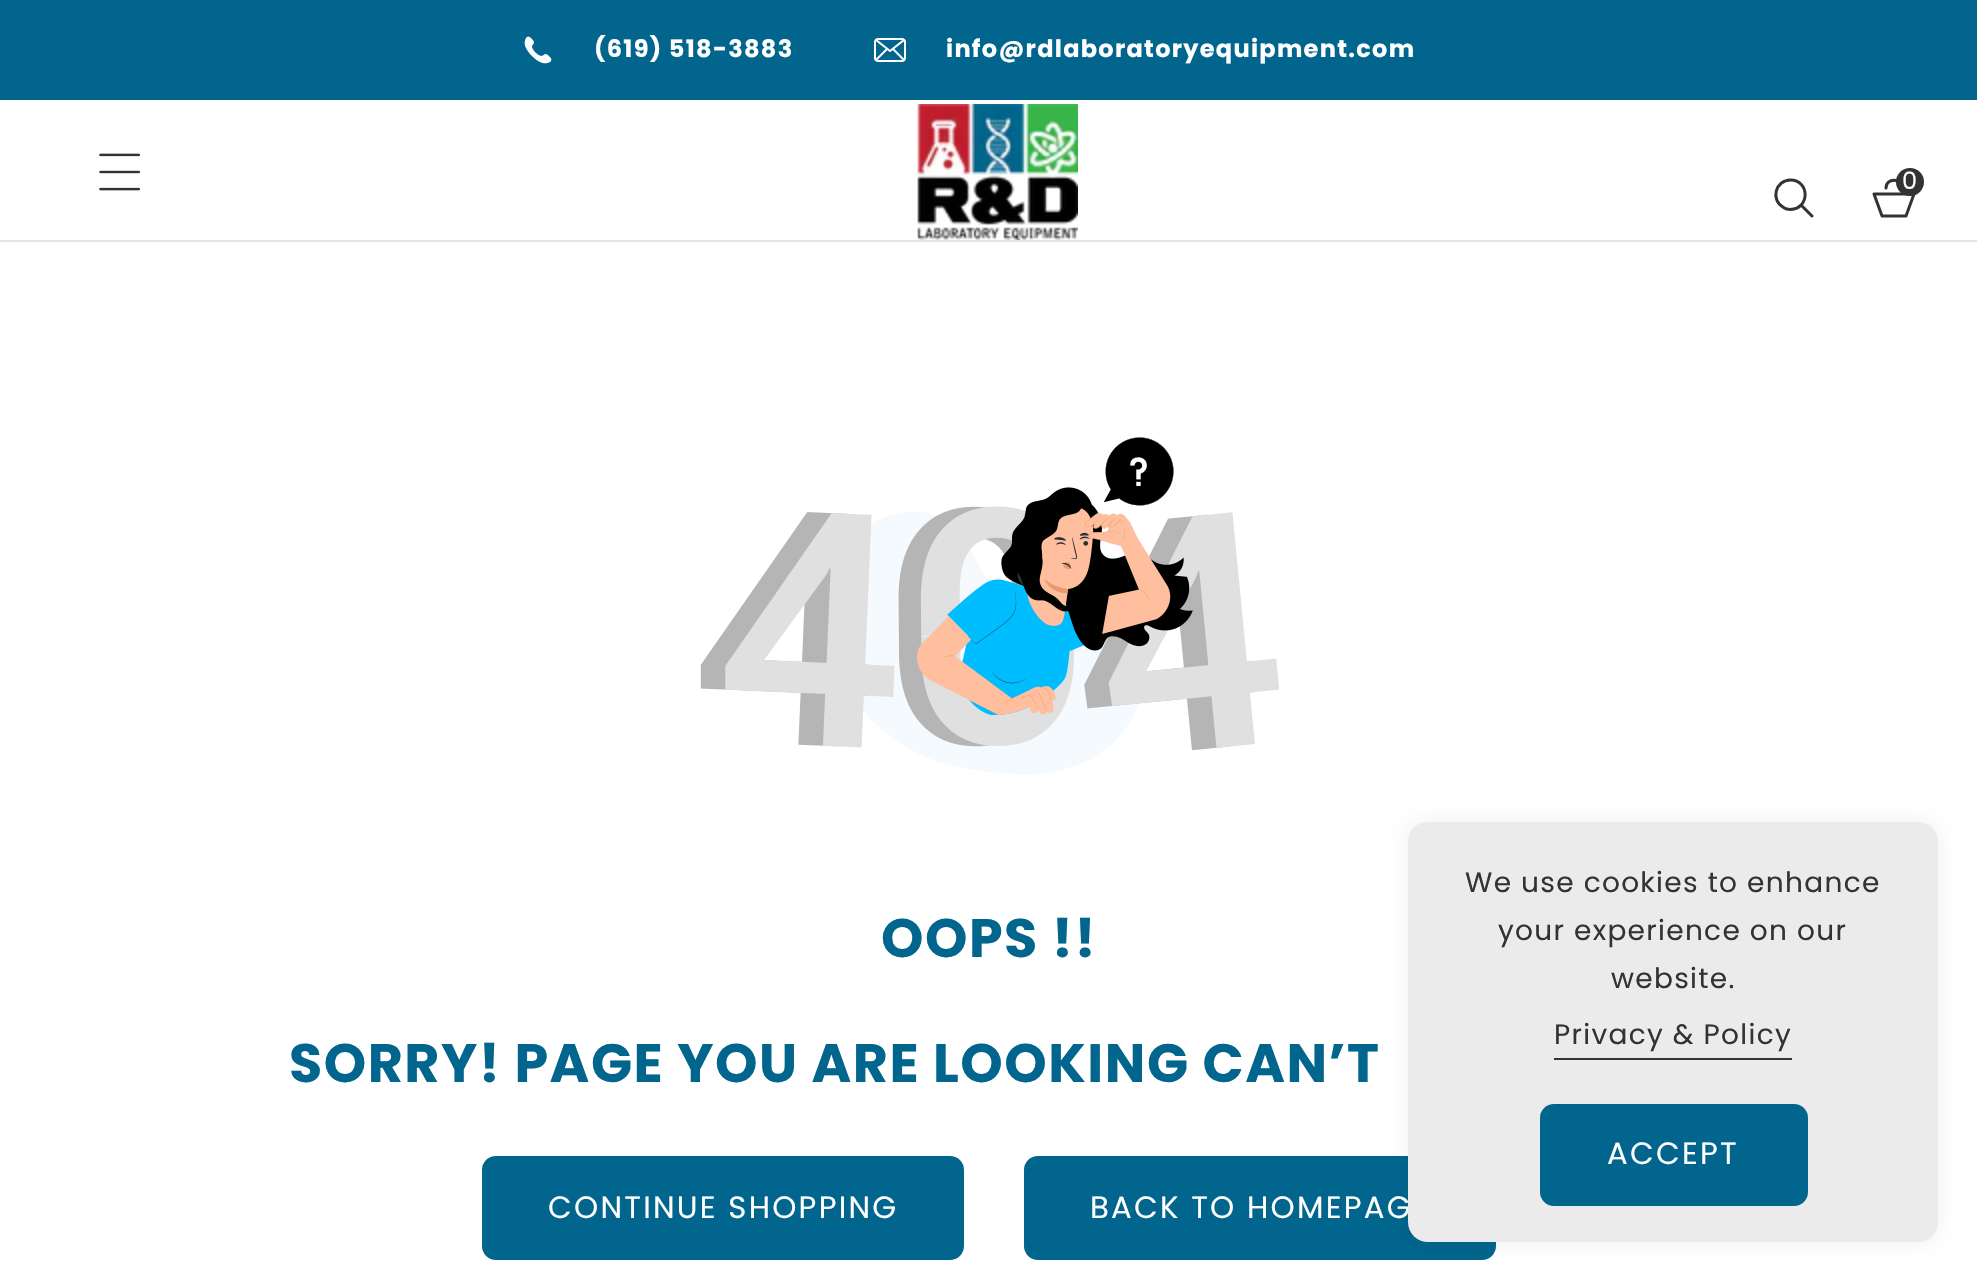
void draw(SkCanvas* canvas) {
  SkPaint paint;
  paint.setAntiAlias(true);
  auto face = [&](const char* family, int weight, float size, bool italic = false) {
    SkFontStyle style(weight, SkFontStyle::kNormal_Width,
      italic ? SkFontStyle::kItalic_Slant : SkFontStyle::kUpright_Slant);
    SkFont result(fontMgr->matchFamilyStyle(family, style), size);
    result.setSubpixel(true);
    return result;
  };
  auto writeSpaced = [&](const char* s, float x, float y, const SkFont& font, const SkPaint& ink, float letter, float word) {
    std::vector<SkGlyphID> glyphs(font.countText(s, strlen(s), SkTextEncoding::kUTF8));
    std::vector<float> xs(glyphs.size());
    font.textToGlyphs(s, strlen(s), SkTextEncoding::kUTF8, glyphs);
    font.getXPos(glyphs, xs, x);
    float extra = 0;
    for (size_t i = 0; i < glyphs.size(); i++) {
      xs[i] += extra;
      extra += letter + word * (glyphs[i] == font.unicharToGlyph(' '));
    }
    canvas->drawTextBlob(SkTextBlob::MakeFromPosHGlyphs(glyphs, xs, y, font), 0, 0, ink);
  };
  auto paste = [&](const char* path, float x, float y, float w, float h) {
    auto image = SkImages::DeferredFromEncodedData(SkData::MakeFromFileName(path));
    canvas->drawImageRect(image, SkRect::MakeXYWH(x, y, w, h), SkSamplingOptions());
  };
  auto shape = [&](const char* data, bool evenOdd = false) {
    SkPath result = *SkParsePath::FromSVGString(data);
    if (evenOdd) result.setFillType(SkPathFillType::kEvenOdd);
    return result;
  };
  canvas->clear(0xffffffff);
  paint.setColor(0xff01658d);
  canvas->drawRect(SkRect::MakeXYWH(0, 0, 1977, 100), paint);
  paste("img/1.png", 524, 36, 28, 28);
  paste("img/2.png", 874, 38, 32, 24);
  paint.setColor(0xffe5e5e5);
  canvas->drawRect(SkRect::MakeXYWH(0, 240, 1977, 2), paint);
  paste("img/3.png", 99, 153, 41, 38);
  paste("img/4.png", 917, 104, 161, 136);
  paint.setStroke(true);
  paint.setStrokeWidth(3);
  paint.setColor(0xff333333);
  canvas->drawPath(shape("M1790.5 180C1775.5 180 1770 200 1783.5 207.5C1785.5 209 1788 209.5 1790.5 209.5C1810.5 208.5 1809.5 180 1790.5 180Z"), paint);
  paint.setStrokeCap(SkPaint::kRound_Cap);
  canvas->drawPath(shape("M1801.5 205.5L1812 216"), paint);
  paint.setStrokeJoin(SkPaint::kRound_Join);
  canvas->drawPath(shape("M1874 194H1914L1906 216H1882ZM1902 188C1902 177.5 1886 177.5 1886 188"), paint);
  paint.setStroke(false);
  canvas->drawCircle(1910, 182, 14, paint);
  paste("img/5.png", 700, 437, 579, 338);
  paint.setColor(0xff01658d);
  canvas->drawRoundRect(SkRect::MakeXYWH(482, 1156, 482, 104), 14, 14, paint);
  canvas->drawRoundRect(SkRect::MakeXYWH(1024, 1156, 472, 104), 14, 14, paint);
  paint.setColor(0x0f000000);
  paint.setMaskFilter(SkMaskFilter::MakeBlur(kNormal_SkBlurStyle, 10));
  canvas->drawRoundRect(SkRect::MakeXYWH(1408, 822, 530, 420), 20, 20, paint);
  paint.setMaskFilter(nullptr);
  auto f0 = face("Poppins", 700, 24);
  paint.setColor(0xffffffff);
  writeSpaced("(619) 518-3883", 594, 57, f0, paint, 1.3f, 0);
  writeSpaced("info@rdlaboratoryequipment.com", 946, 57, f0, paint, 1.3f, 0);
  auto f1 = face("Poppins", 400, 24);
  writeSpaced("0", 1902, 189, f1, paint, 1.3f, 0);
  auto f2 = face("Poppins", 700, 54);
  paint.setColor(0xff01658d);
  writeSpaced("OOPS !!", 881, 957, f2, paint, 1.5f, 0);
  writeSpaced("SORRY! PAGE YOU ARE LOOKING CAN’T", 289, 1082, f2, paint, 1.5f, 0);
  auto f3 = face("Poppins", 400, 30.75f);
  paint.setColor(0xffffffff);
  writeSpaced("CONTINUE SHOPPING", 548, 1218, f3, paint, 2.25f, 0);
  writeSpaced("BACK TO HOMEPAG", 1090, 1218, f3, paint, 2.25f, 0);
  paint.setColor(0xffebebeb);
  canvas->drawRoundRect(SkRect::MakeXYWH(1408, 822, 530, 420), 20, 20, paint);
  auto f4 = face("Poppins", 400, 28);
  paint.setColor(0xff333333);
  {
    const struct { const char* s; float x, y; } items[] = {
      {"We use cookies to enhance", 1465, 892},
      {"your experience on our", 1498, 940},
      {"website.", 1611, 988},
    };
    for (auto [s, x, y] : items) {
      writeSpaced(s, x, y, f4, paint, 1.3f, 0);
    }
  }
  canvas->drawRect(SkRect::MakeXYWH(1554, 1058, 238, 2), paint);
  writeSpaced("Privacy & Policy", 1554, 1044, f4, paint, 1.3f, 0);
  paint.setColor(0xff01658d);
  canvas->drawRoundRect(SkRect::MakeXYWH(1540, 1104, 268, 102), 14, 14, paint);
  paint.setColor(0xffffffff);
  writeSpaced("ACCEPT", 1607, 1164, f3, paint, 2.25f, 0);
}
